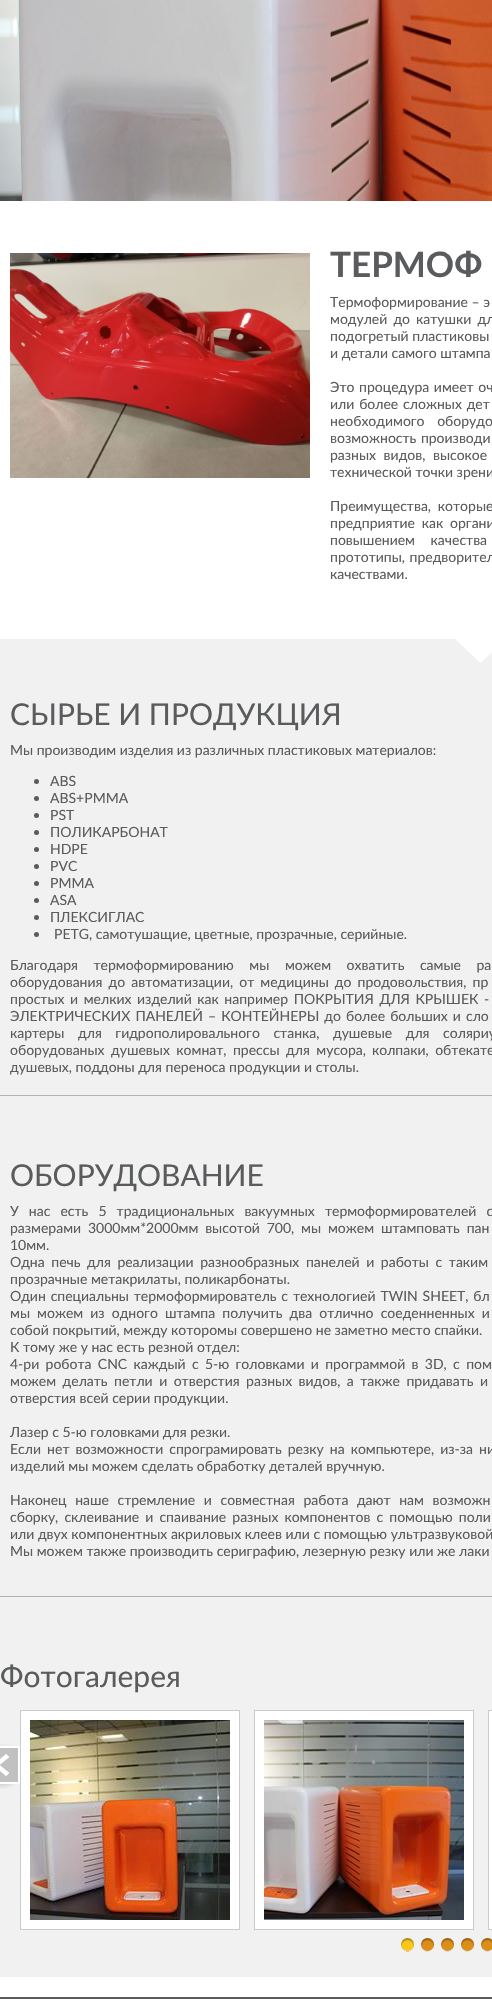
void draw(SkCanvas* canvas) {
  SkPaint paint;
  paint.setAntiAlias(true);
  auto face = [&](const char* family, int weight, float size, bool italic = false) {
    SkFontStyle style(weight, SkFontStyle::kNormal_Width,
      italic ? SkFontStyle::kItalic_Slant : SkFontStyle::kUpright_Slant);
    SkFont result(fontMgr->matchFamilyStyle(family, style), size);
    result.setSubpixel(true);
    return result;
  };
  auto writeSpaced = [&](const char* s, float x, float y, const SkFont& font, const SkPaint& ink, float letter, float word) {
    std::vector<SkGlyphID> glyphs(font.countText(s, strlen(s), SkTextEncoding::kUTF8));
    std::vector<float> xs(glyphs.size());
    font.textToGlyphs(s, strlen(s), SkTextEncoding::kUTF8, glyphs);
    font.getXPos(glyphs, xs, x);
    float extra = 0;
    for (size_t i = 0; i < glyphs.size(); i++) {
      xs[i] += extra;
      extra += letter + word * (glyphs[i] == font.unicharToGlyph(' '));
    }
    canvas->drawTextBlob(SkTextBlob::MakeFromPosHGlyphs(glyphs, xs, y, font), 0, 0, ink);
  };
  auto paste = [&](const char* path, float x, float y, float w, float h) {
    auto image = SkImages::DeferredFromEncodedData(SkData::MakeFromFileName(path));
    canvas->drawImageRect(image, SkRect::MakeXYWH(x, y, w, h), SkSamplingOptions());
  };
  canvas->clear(0xffffffff);
  paste("img/1.png", 0, 0, 492, 201);
  paste("img/2.png", 10, 253, 300, 225);
  paint.setColor(0xfff1f1f1);
  canvas->drawRect(SkRect::MakeXYWH(0, 639, 492, 1338), paint);
  paste("img/3.png", 455, 639, 37, 24);
  paint.setColor(0xffb3b3b5);
  canvas->drawRect(SkRect::MakeXYWH(0, 1095, 492, 1), paint);
  paint.setColor(0xff5a5b5d);
  canvas->drawCircle(36.5f, 781.5f, 2.5f, paint);
  canvas->drawCircle(36.5f, 798.5f, 2.5f, paint);
  canvas->drawCircle(36.5f, 815.5f, 2.5f, paint);
  canvas->drawCircle(36.5f, 832.5f, 2.5f, paint);
  canvas->drawCircle(36.5f, 849.5f, 2.5f, paint);
  canvas->drawCircle(36.5f, 866.5f, 2.5f, paint);
  canvas->drawCircle(36.5f, 883.5f, 2.5f, paint);
  canvas->drawCircle(36.5f, 900.5f, 2.5f, paint);
  canvas->drawCircle(36.5f, 917.5f, 2.5f, paint);
  canvas->drawCircle(36.5f, 934.5f, 2.5f, paint);
  paint.setColor(0xffb3b3b5);
  canvas->drawRect(SkRect::MakeXYWH(0, 1596, 492, 1), paint);
  paste("img/4.png", 0, 1744, 20, 45);
  paint.setColor(0xffffffff);
  canvas->drawRect(SkRect::MakeXYWH(20.5f, 1710.5f, 219, 219), paint);
  paint.setStroke(true);
  paint.setStrokeWidth(1);
  paint.setColor(0xffcccccc);
  canvas->drawRect(SkRect::MakeXYWH(20.5f, 1710.5f, 219, 219), paint);
  paste("img/5.png", 30, 1720, 200, 200);
  paint.setStroke(false);
  paint.setColor(0xffffffff);
  canvas->drawRect(SkRect::MakeXYWH(254.5f, 1710.5f, 219, 219), paint);
  paint.setStroke(true);
  paint.setColor(0xffcccccc);
  canvas->drawRect(SkRect::MakeXYWH(254.5f, 1710.5f, 219, 219), paint);
  paste("img/6.png", 264, 1720, 200, 200);
  paint.setStroke(false);
  paint.setColor(0xffffffff);
  canvas->drawRect(SkRect::MakeXYWH(488.5f, 1710.5f, 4, 219), paint);
  paint.setStroke(true);
  paint.setColor(0xffcccccc);
  canvas->drawRect(SkRect::MakeXYWH(488.5f, 1710.5f, 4, 219), paint);
  paste("img/7.png", 401, 1938, 13, 14);
  paste("img/8.png", 421, 1938, 13, 14);
  paste("img/8.png", 441, 1938, 13, 14);
  paste("img/8.png", 461, 1938, 13, 14);
  paste("img/9.png", 481, 1938, 11, 14);
  paint.setStroke(false);
  paint.setColor(0xff5a5b5d);
  canvas->drawRect(SkRect::MakeXYWH(0, 1997, 492, 2), paint);
  auto f0 = face("Lato", 700, 35);
  canvas->drawString("ТЕРМОФ", 330, 277, f0, paint);
  auto f1 = face("Lato", 400, 14);
  canvas->drawString("Термоформирование – э", 330, 307, f1, paint);
  writeSpaced("модулей до катушки дл", 330, 324, f1, paint, 0, 2.5f);
  canvas->drawString("подогретый пластиковы", 330, 341, f1, paint);
  canvas->drawString("и детали самого штампа", 330, 358, f1, paint);
  writeSpaced("Это процедура имеет оч", 330, 392, f1, paint, 0, 1);
  writeSpaced("или более сложных дет", 330, 409, f1, paint, 0, 1.25f);
  writeSpaced("необходимого оборудо", 330, 426, f1, paint, 0, 9);
  writeSpaced("возможность производи", 330, 443, f1, paint, 0, 1);
  writeSpaced("разных видов, высокое", 330, 460, f1, paint, 0, 4);
  canvas->drawString("технической точки зрени", 330, 477, f1, paint);
  writeSpaced("Преимущества, которые", 330, 511, f1, paint, 0, 3.25f);
  writeSpaced("предприятие как органи", 330, 528, f1, paint, 0, 3.25f);
  writeSpaced("повышением качества", 330, 545, f1, paint, 0, 12);
  writeSpaced("прототипы, предворител", 330, 562, f1, paint, 0, 1);
  canvas->drawString("качествами.", 330, 579, f1, paint);
  auto f2 = face("Lato", 400, 30);
  canvas->drawString("СЫРЬЕ И ПРОДУКЦИЯ", 10, 725, f2, paint);
  {
    const struct { const char* s; float x, y; } items[] = {
      {"Мы производим изделия из различных пластиковых материалов:", 10, 755},
      {"ABS", 50, 786},
      {"ABS+PMMA", 50, 803},
      {"PST", 50, 820},
      {"ПОЛИКАРБОНАТ", 50, 837},
      {"HDPE", 50, 854},
      {"PVC", 50, 871},
      {"PMMA", 50, 888},
      {"ASA", 50, 905},
      {"ПЛЕКСИГЛАС", 50, 922},
      {"PETG, самотушащие, цветные, прозрачные, серийные.", 54, 939},
    };
    for (auto [s, x, y] : items) {
      canvas->drawString(s, x, y, f1, paint);
    }
  }
  writeSpaced("Благодаря термоформированию мы можем охватить самые ра", 10, 970, f1, paint, 0, 12);
  writeSpaced("оборудования до автоматизации, от медицины до продовольствия, пр", 10, 987, f1, paint, 0, 2.5f);
  writeSpaced("простых и мелких изделий как например ПОКРЫТИЯ ДЛЯ КРЫШЕК -", 10, 1004, f1, paint, 0, 2);
  writeSpaced("ЭЛЕКТРИЧЕСКИХ ПАНЕЛЕЙ – КОНТЕЙНЕРЫ до более больших и сло", 10, 1021, f1, paint, 0, 1.5f);
  writeSpaced("картеры для гидрополировального станка, душевые для соляриу", 10, 1038, f1, paint, 0, 10);
  writeSpaced("оборудованых душевых комнат, прессы для мусора,", 10, 1055, f1, paint, 0, 2.9f);
  writeSpaced("колпаки, обтекате", 372, 1055, f1, paint, 0, 2.9f);
  canvas->drawString("душевых, поддоны для переноса продукции и столы.", 10, 1072, f1, paint);
  canvas->drawString("ОБОРУДОВАНИЕ", 10, 1186, f2, paint);
  writeSpaced("У нас есть 5 традициональных вакуумных термоформирователей с", 10, 1216, f1, paint, 0, 6.5f);
  writeSpaced("размерами 3000мм*2000мм высотой 700, мы можем штамповать пан", 10, 1233, f1, paint, 0, 3.25f);
  canvas->drawString("10мм.", 10, 1250, f1, paint);
  writeSpaced("Одна печь для реализации разнообразных панелей и работы с таким", 10, 1267, f1, paint, 0, 3);
  canvas->drawString("прозрачные метакрилаты, поликарбонаты.", 10, 1284, f1, paint);
  writeSpaced("Один специальны термоформирователь с технологией TWIN SHEET, бл", 10, 1301, f1, paint, 0, 1.25f);
  writeSpaced("мы можем из одного штампа получить два отлично соеденненных и", 10, 1318, f1, paint, 0, 3.5f);
  canvas->drawString("собой покрытий, между которомы совершено не заметно место спайки.", 10, 1335, f1, paint);
  canvas->drawString("К тому же у нас есть резной отдел:", 10, 1352, f1, paint);
  writeSpaced("4-ри робота СNC каждый с 5-ю головками и программой в 3D, с пом", 10, 1369, f1, paint, 0, 2.75f);
  writeSpaced("можем делать петли и отверстия разных видов, а также придавать и", 10, 1386, f1, paint, 0, 2.9f);
  canvas->drawString("отверстия всей серии продукции.", 10, 1403, f1, paint);
  canvas->drawString("Лазер с 5-ю головками для резки.", 10, 1437, f1, paint);
  writeSpaced("Если нет возможности спрограмировать резку на компьютере, из-за ни", 10, 1454, f1, paint, 0, 2.5f);
  canvas->drawString("изделий мы можем сделать обработку деталей вручную.", 10, 1471, f1, paint);
  writeSpaced("Наконец наше стремление и совместная работа дают нам возможн", 10, 1505, f1, paint, 0, 5);
  writeSpaced("сборку, склеивание и спаивание разных компонентов с помощью поли", 10, 1522, f1, paint, 0, 2.5f);
  canvas->drawString("или двух компонентных акриловых клеев или с помощью ультразвуковой", 10, 1539, f1, paint);
  canvas->drawString("Мы можем также производить сериграфию, лезерную резку или же лаки", 10, 1556, f1, paint);
  canvas->drawString("Фотогалерея", 0, 1687, f2, paint);
}
